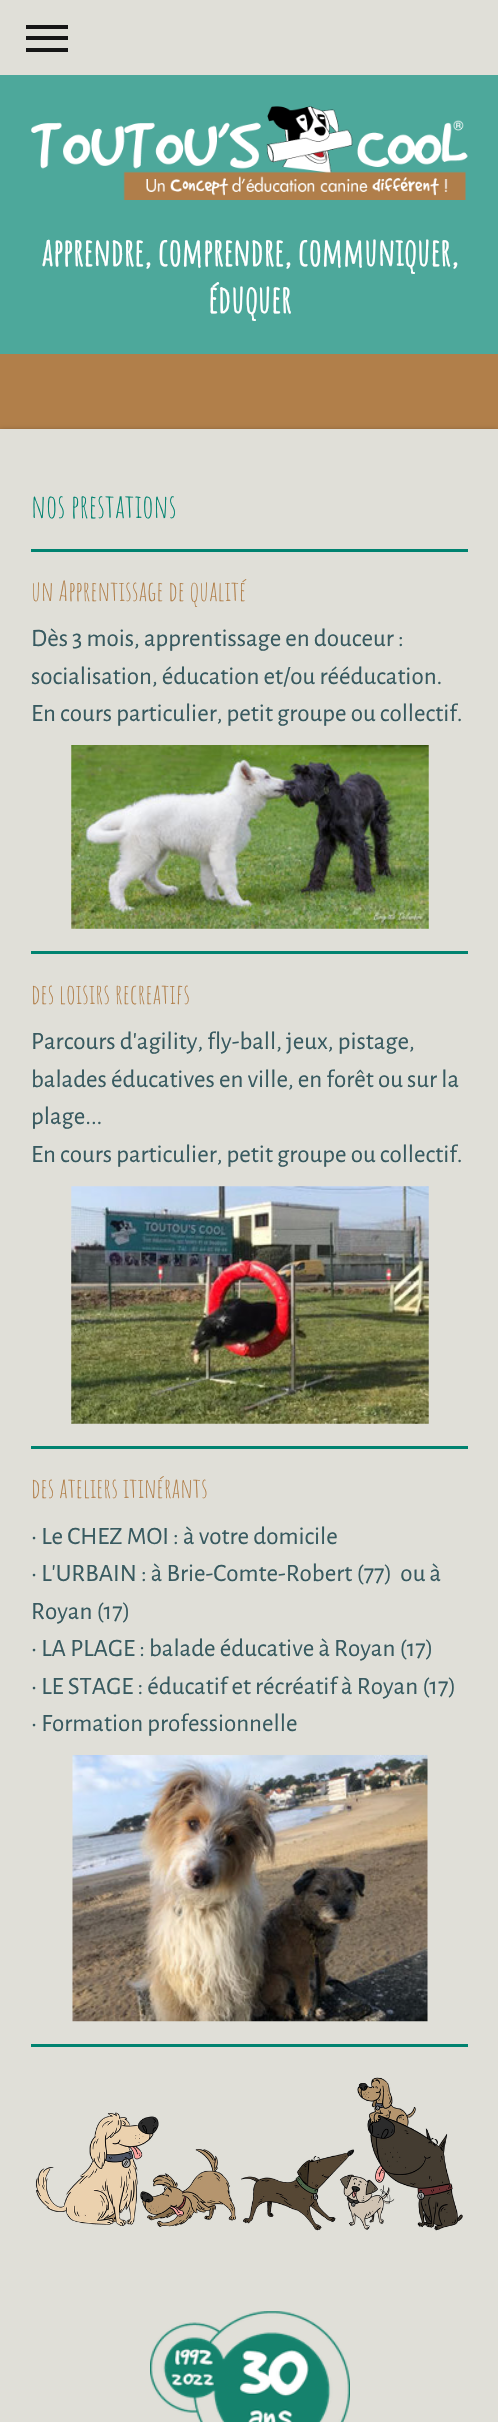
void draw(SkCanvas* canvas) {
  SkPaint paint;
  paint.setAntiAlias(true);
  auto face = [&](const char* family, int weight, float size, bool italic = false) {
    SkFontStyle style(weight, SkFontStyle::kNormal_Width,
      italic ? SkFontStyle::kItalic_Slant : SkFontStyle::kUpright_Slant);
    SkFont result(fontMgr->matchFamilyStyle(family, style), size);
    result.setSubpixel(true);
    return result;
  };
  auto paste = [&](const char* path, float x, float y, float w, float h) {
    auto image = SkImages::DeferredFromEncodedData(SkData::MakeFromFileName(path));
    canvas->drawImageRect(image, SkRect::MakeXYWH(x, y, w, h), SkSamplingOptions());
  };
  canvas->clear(0xffb17f4a);
  {
    const struct { float x, y, w, h; SkColor color; } items[] = {
      {0, 75, 498, 279, 0xff4da89b},
      {0, 0, 498, 75, 0xffe0dfd8},
      {26, 36, 42, 4, 0xff161616},
      {26, 25, 42, 4, 0xff161616},
      {26, 48, 42, 4, 0xff161616},
    };
    for (auto [x, y, w, h, color] : items) {
      paint.setColor(color);
      canvas->drawRect(SkRect::MakeXYWH(x, y, w, h), paint);
    }
  }
  paste("img/1.png", 31, 106, 437, 94);
  paint.setColor(0x70000000);
  paint.setMaskFilter(SkMaskFilter::MakeBlur(kNormal_SkBlurStyle, 3));
  canvas->drawRect(SkRect::MakeXYWH(-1, 431, 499, 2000), paint);
  paint.setMaskFilter(nullptr);
  paint.setColor(0xffe0dfd8);
  canvas->drawRect(SkRect::MakeXYWH(0, 429, 498, 1993), paint);
  paint.setColor(0xff008370);
  canvas->drawRect(SkRect::MakeXYWH(31, 549, 437, 3), paint);
  paste("img/2.png", 71, 745, 358, 184);
  canvas->drawRect(SkRect::MakeXYWH(31, 951, 437, 3), paint);
  paste("img/3.png", 71, 1186, 358, 238);
  canvas->drawRect(SkRect::MakeXYWH(31, 1446, 437, 3), paint);
  paste("img/4.png", 72, 1755, 356, 267);
  canvas->drawRect(SkRect::MakeXYWH(31, 2044, 437, 3), paint);
  paste("img/5.png", 35, 2077, 428, 154);
  paste("img/6.png", 150, 2311, 200, 111);
  auto f0 = face("Amatic SC", 700, 37.5f);
  paint.setColor(0xffffffff);
  canvas->drawString("apprendre, comprendre, communiquer,", 41, 266, f0, paint);
  canvas->drawString("éduquer", 208, 313, f0, paint);
  auto f1 = face("Amatic SC", 400, 32.5f);
  paint.setColor(0xff008370);
  canvas->drawString("nos prestations", 31, 518, f1, paint);
  auto f2 = face("Amatic SC", 400, 27.5f);
  paint.setColor(0xffb17f4a);
  canvas->drawString("un Apprentissage de qualité", 31, 601, f2, paint);
  auto f3 = face("Alegreya Sans", 400, 25);
  paint.setColor(0xff385a60);
  {
    const struct { const char* s; float x, y; } items[] = {
      {"Dès 3 mois, apprentissage en douceur :", 31, 646},
      {"socialisation, éducation et/ou rééducation.", 31, 684},
      {"En cours particulier, petit groupe ou collectif.", 31, 721},
    };
    for (auto [s, x, y] : items) {
      canvas->drawString(s, x, y, f3, paint);
    }
  }
  paint.setColor(0xffb17f4a);
  canvas->drawString("des loisirs recreatifs", 31, 1004, f2, paint);
  paint.setColor(0xff385a60);
  {
    const struct { const char* s; float x, y; } items[] = {
      {"Parcours d'agility, fly-ball, jeux, pistage,", 31, 1049},
      {"balades éducatives en ville, en forêt ou sur la", 31, 1087},
      {"plage...", 31, 1124},
      {"En cours particulier, petit groupe ou collectif.", 31, 1162},
    };
    for (auto [s, x, y] : items) {
      canvas->drawString(s, x, y, f3, paint);
    }
  }
  paint.setColor(0xffb17f4a);
  canvas->drawString("des ateliers itinérants", 31, 1498, f2, paint);
  paint.setColor(0xff385a60);
  {
    const struct { const char* s; float x, y; } items[] = {
      {"• Le CHEZ MOI : à votre domicile", 31, 1544},
      {"• L'URBAIN : à Brie-Comte-Robert (77)  ou à", 31, 1581},
      {"Royan (17)", 31, 1619},
      {"• LA PLAGE : balade éducative à Royan (17)", 31, 1656},
      {"• LE STAGE : éducatif et récréatif à Royan (17)", 31, 1694},
      {"• Formation professionnelle", 31, 1731},
    };
    for (auto [s, x, y] : items) {
      canvas->drawString(s, x, y, f3, paint);
    }
  }
}
